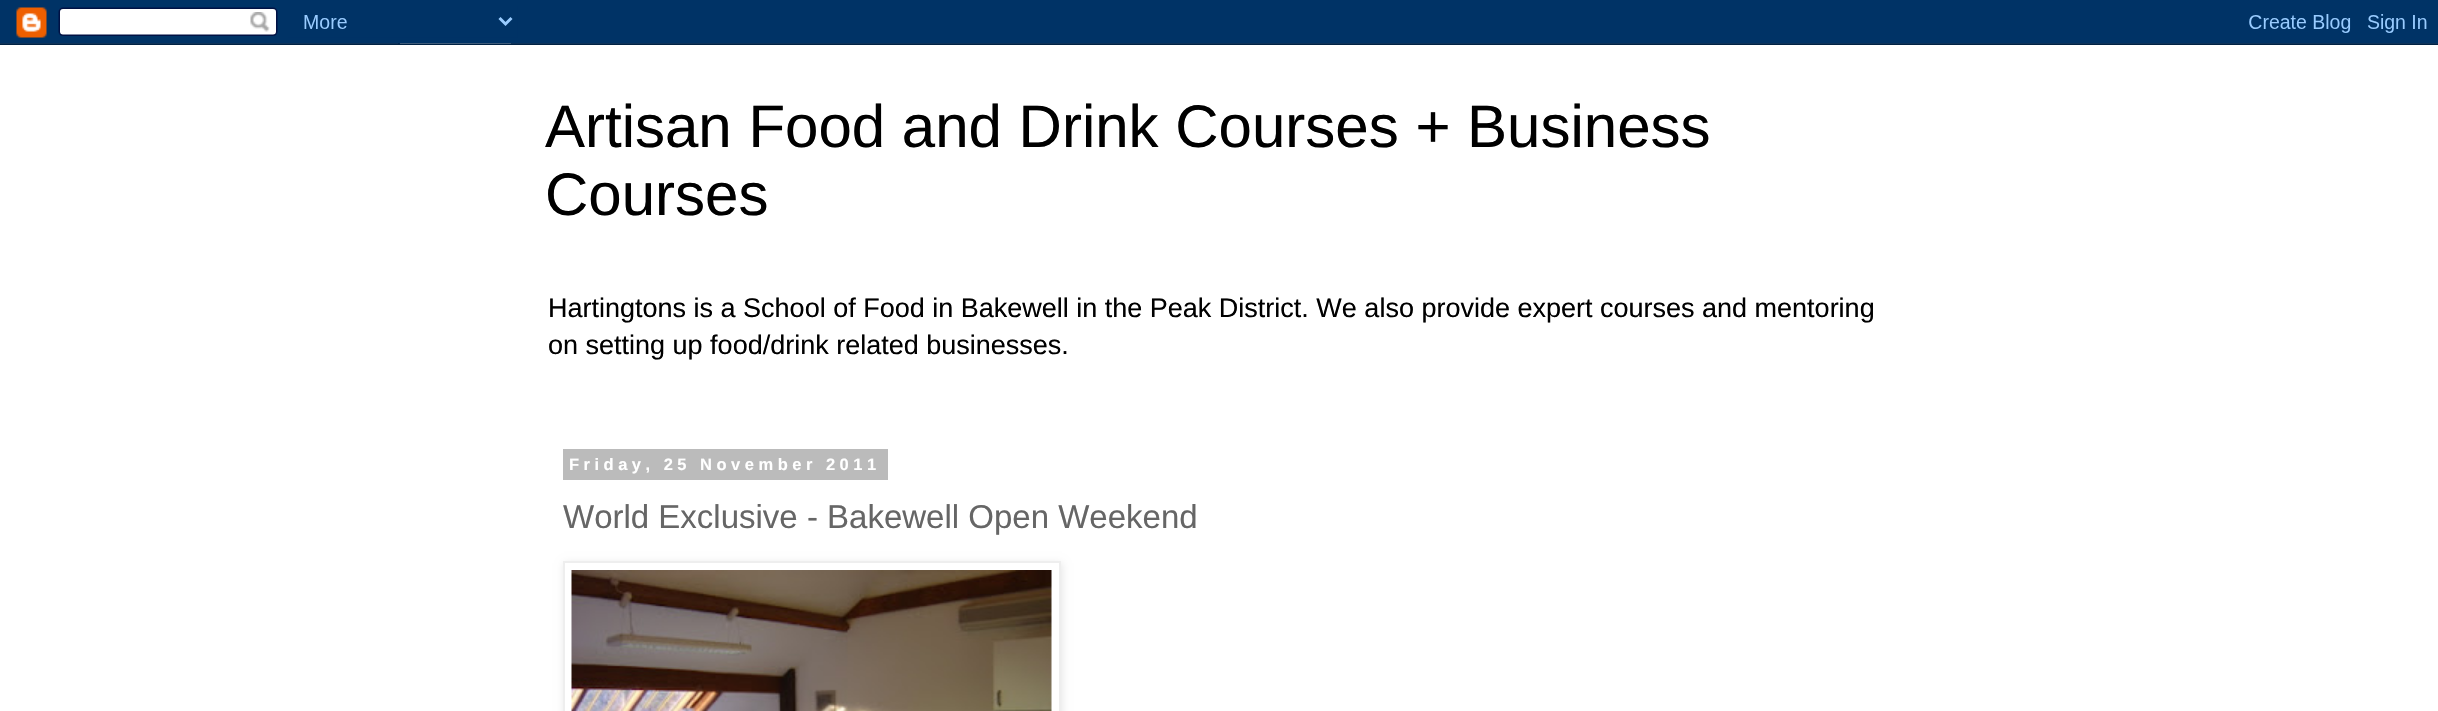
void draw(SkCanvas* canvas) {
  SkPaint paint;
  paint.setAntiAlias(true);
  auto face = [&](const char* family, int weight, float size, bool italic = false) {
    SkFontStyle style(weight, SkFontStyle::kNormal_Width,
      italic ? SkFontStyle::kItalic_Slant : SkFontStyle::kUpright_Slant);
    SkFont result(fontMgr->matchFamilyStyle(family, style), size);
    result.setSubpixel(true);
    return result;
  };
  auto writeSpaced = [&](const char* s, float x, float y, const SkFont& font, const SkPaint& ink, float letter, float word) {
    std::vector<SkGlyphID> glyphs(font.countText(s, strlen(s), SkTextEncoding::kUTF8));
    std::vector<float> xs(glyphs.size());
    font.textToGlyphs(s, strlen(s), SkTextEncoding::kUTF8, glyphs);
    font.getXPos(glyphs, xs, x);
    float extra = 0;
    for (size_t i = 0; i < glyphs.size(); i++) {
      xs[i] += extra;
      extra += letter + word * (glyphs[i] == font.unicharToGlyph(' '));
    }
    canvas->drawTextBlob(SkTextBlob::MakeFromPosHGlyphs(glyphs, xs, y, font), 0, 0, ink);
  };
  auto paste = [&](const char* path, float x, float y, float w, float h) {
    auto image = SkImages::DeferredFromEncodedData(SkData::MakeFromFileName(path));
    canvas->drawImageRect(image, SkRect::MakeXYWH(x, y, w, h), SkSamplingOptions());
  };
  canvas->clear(0xffffffff);
  paste("img/1.png", 0, 0, 2438, 45);
  paint.setColor(0xffbbbbbb);
  canvas->drawRect(SkRect::MakeXYWH(563, 449, 325, 31), paint);
  paint.setColor(0x1a000000);
  paint.setMaskFilter(SkMaskFilter::MakeBlur(kNormal_SkBlurStyle, 4));
  canvas->drawRect(SkRect::MakeXYWH(564, 563, 498, 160), paint);
  paint.setMaskFilter(nullptr);
  paint.setColor(0xffffffff);
  canvas->drawRect(SkRect::MakeXYWH(564, 562, 496, 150), paint);
  paint.setStroke(true);
  paint.setStrokeWidth(2);
  paint.setColor(0xffeeeeee);
  canvas->drawRect(SkRect::MakeXYWH(564, 562, 496, 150), paint);
  paste("img/2.png", 571, 570, 481, 141);
  auto f0 = face("Liberation Sans", 400, 60);
  paint.setStroke(false);
  paint.setColor(0xff000000);
  canvas->drawString("Artisan Food and Drink Courses + Business", 545, 147, f0, paint);
  canvas->drawString("Courses", 545, 215, f0, paint);
  auto f1 = face("Liberation Sans", 400, 27);
  canvas->drawString("Hartingtons is a School of Food in Bakewell in the Peak District. We also provide expert courses and mentoring", 548, 317, f1, paint);
  canvas->drawString("on setting up food/drink related businesses.", 548, 354, f1, paint);
  auto f2 = face("Liberation Sans", 700, 16.5f);
  paint.setColor(0xffffffff);
  writeSpaced("Friday, 25 November 2011", 569, 470, f2, paint, 4.5f, 0);
  auto f3 = face("Liberation Sans", 400, 33);
  paint.setColor(0xff666666);
  canvas->drawString("World Exclusive - Bakewell Open Weekend", 563, 528, f3, paint);
}
